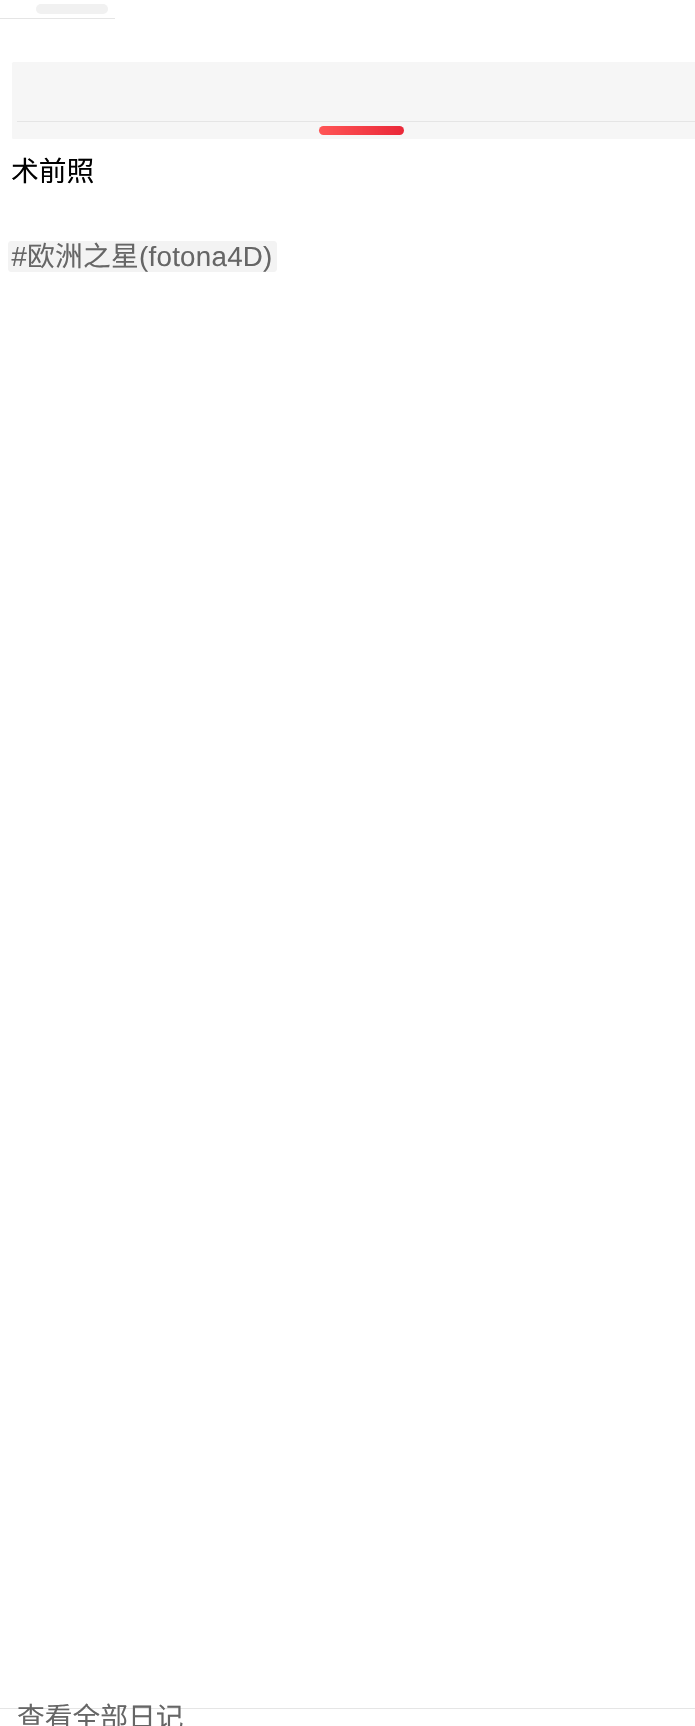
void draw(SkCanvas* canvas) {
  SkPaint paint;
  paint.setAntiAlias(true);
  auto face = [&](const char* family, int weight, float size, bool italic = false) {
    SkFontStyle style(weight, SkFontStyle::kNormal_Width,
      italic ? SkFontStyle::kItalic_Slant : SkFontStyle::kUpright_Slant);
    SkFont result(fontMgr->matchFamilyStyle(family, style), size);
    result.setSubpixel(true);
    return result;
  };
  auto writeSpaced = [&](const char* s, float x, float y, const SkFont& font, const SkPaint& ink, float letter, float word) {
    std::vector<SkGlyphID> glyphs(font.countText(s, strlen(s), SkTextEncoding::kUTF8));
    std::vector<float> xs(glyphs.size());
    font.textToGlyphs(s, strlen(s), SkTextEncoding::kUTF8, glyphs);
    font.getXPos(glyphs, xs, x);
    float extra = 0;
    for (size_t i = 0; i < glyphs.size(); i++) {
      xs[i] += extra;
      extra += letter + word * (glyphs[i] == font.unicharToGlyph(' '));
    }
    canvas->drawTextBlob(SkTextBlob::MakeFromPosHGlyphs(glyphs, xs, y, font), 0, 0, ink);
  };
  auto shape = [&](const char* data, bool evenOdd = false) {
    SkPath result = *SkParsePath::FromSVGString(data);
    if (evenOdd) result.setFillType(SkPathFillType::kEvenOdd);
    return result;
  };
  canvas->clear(0xffffffff);
  paint.setColor(0xffe5e5e5);
  canvas->drawRect(SkRect::MakeXYWH(0, 18, 115, 1), paint);
  paint.setColor(0xfff1f1f1);
  canvas->drawRoundRect(SkRect::MakeXYWH(36, 4, 72, 10), 5, 5, paint);
  paint.setColor(0xfff6f6f6);
  canvas->drawRoundRect(SkRect::MakeXYWH(12, 62, 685, 77), 1.5f, 1.5f, paint);
  paint.setColor(0xffe5e5e5);
  canvas->drawRect(SkRect::MakeXYWH(17, 121, 678, 1), paint);
  {
    const SkColor colors[] = {0xffff5555, 0xffea2839};
    const float stops[] = {0, 1};
    const SkPoint ends[] = {{319, 131}, {404, 131}};
    paint.setShader(SkGradientShader::MakeLinear(ends, colors, stops, 2, SkTileMode::kClamp));
    paint.setAlpha(255);
  }
  canvas->drawRoundRect(SkRect::MakeXYWH(319, 126, 85, 9), 4.5f, 4.5f, paint);
  paint.setShader(nullptr);
  paint.setColor(0xfff3f3f3);
  canvas->drawPath(shape("M11 241H27V272H11C9.5 272 8 270.5 8 269V244C8 242.5 9.5 241 11 241Z"), paint);
  canvas->drawPath(shape("M27 241H274C275.5 241 277 242.5 277 244V269C277 270.5 275.5 272 274 272H27Z"), paint);
  paint.setColor(0xffe5e5e5);
  canvas->drawRect(SkRect::MakeXYWH(0, 1708, 695, 1), paint);
  auto f0 = face("Noto Sans CJK SC", 400, 27.75f);
  paint.setColor(0xff000000);
  canvas->drawString("术前照", 11, 181, f0, paint);
  auto f1 = face("Liberation Sans", 400, 27.75f, true);
  paint.setColor(0xff666666);
  writeSpaced("#", 11, 266, f1, paint, 0.25f, 0);
  writeSpaced("欧洲之星", 27, 266, f0, paint, 0.25f, 0);
  auto f2 = face("Liberation Sans", 400, 27.75f);
  writeSpaced("(fotona4D)", 139, 266, f2, paint, 0.25f, 0);
  canvas->drawString("查看全部日记", 17, 1727, f0, paint);
}
